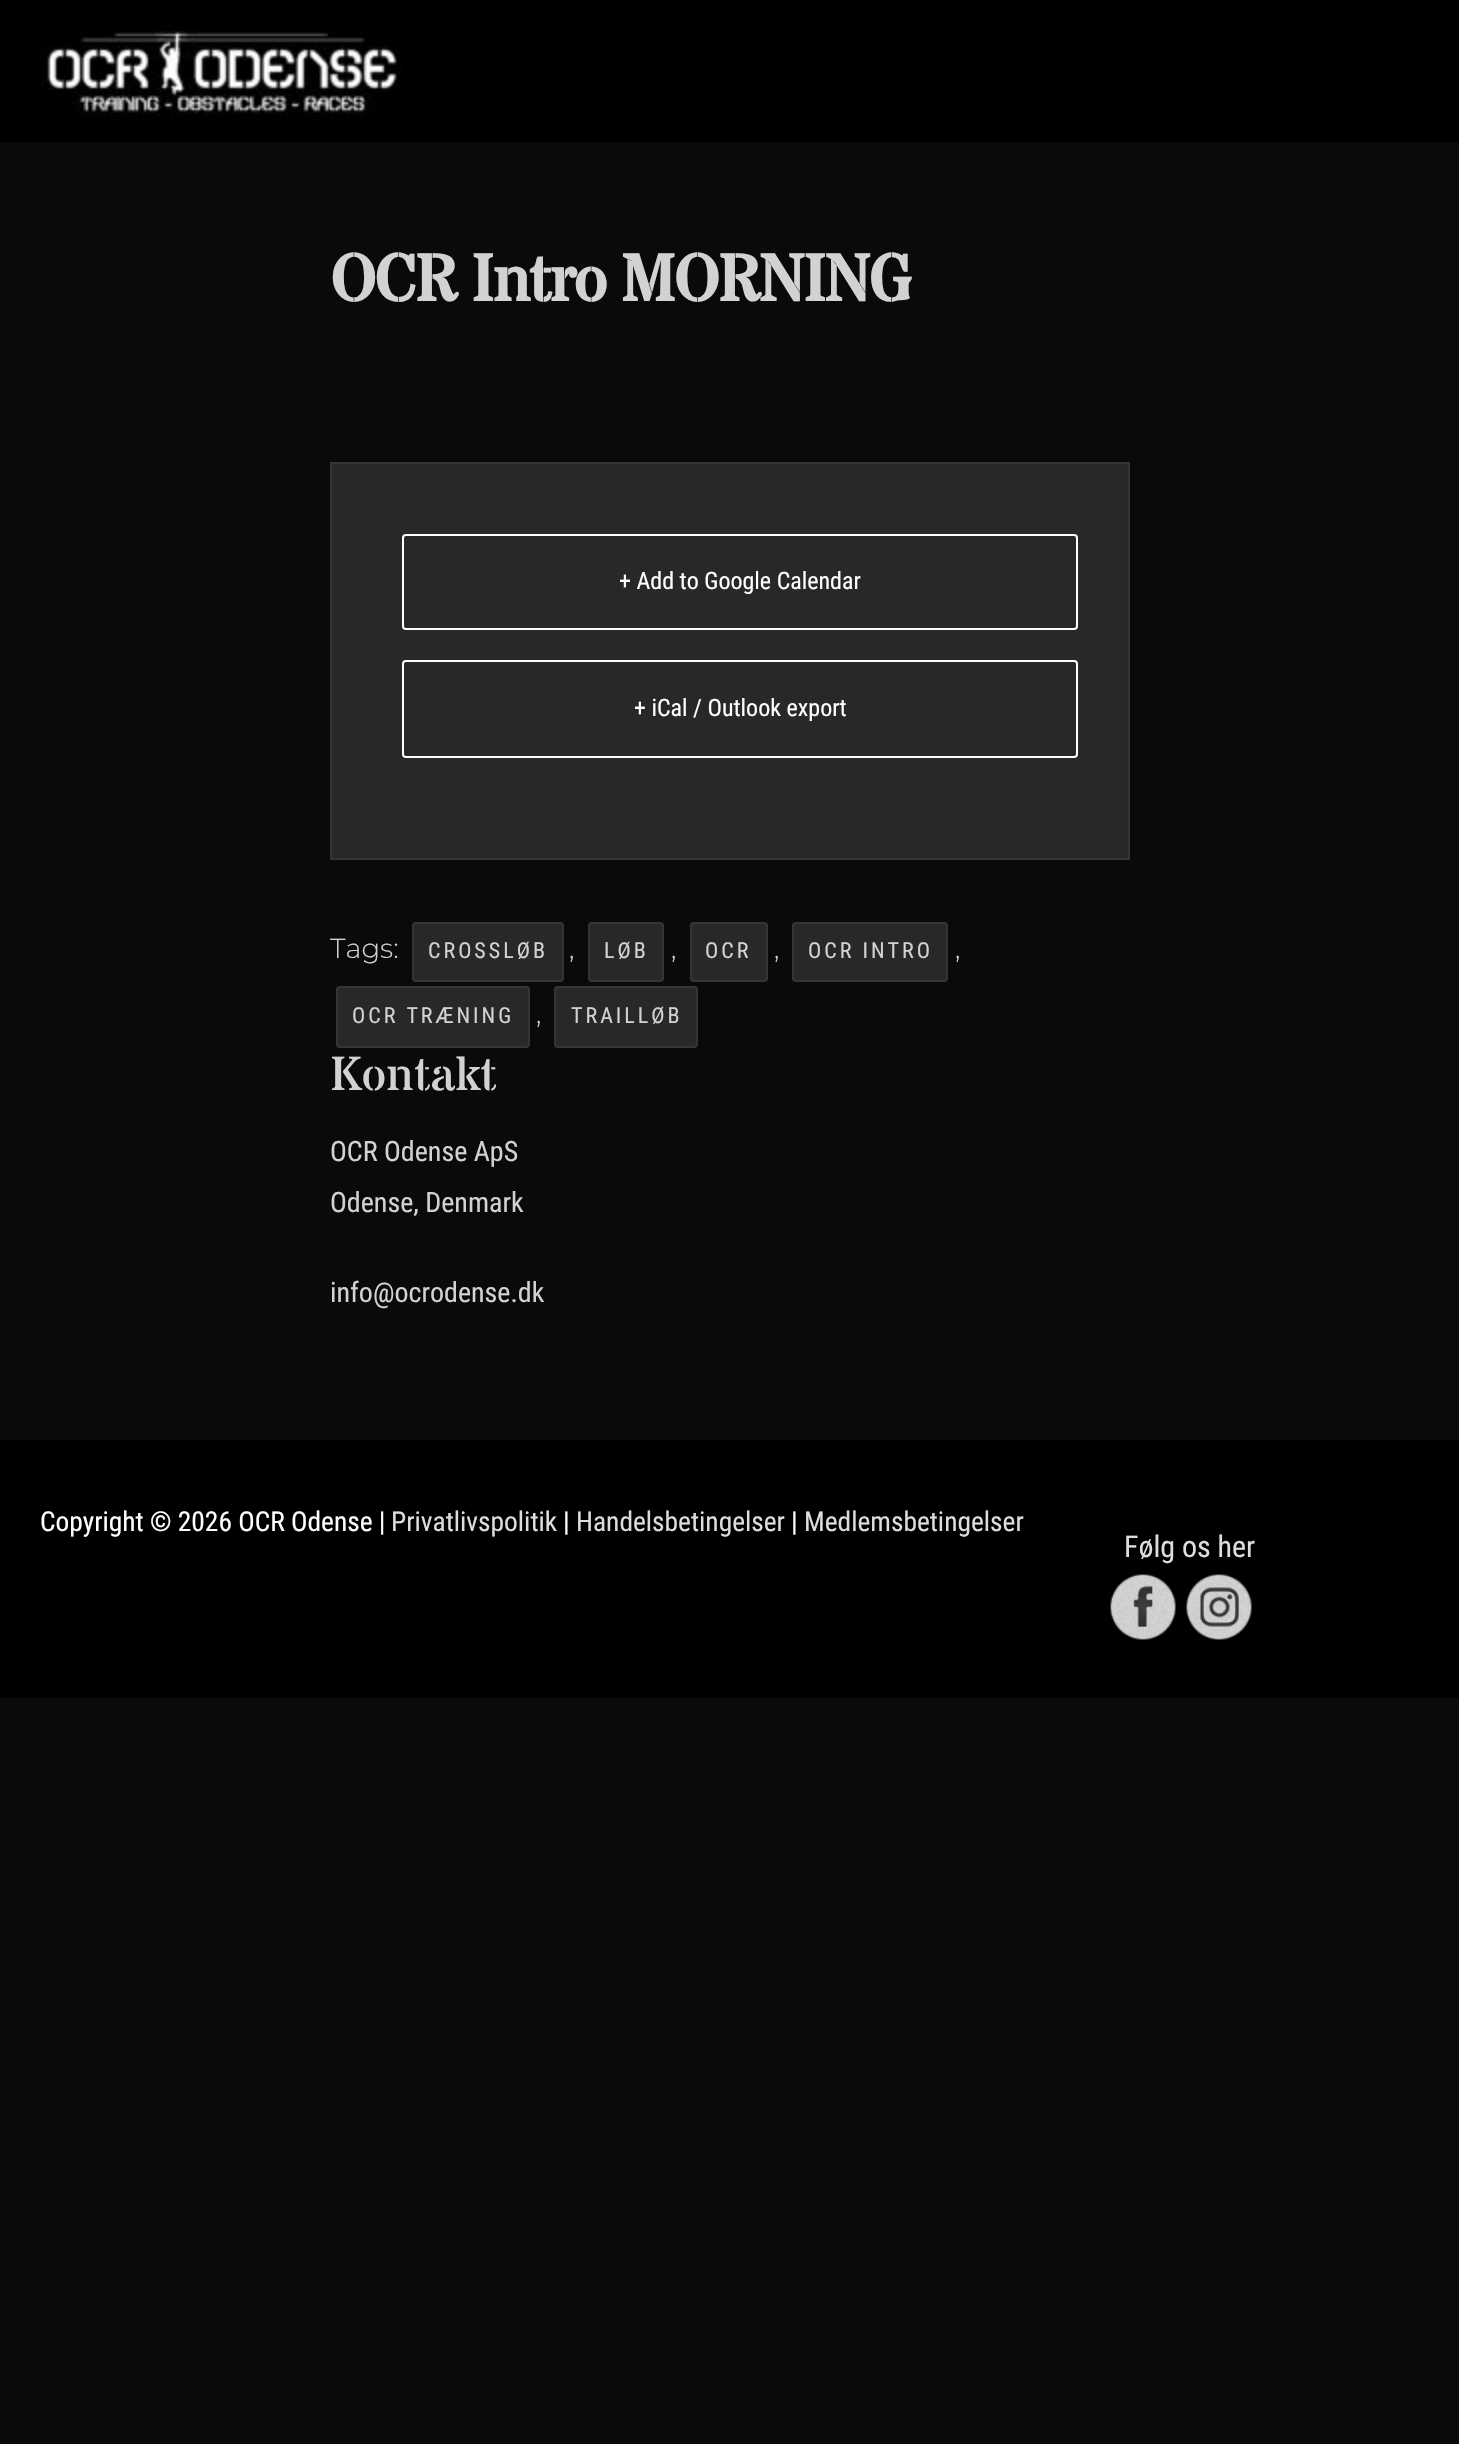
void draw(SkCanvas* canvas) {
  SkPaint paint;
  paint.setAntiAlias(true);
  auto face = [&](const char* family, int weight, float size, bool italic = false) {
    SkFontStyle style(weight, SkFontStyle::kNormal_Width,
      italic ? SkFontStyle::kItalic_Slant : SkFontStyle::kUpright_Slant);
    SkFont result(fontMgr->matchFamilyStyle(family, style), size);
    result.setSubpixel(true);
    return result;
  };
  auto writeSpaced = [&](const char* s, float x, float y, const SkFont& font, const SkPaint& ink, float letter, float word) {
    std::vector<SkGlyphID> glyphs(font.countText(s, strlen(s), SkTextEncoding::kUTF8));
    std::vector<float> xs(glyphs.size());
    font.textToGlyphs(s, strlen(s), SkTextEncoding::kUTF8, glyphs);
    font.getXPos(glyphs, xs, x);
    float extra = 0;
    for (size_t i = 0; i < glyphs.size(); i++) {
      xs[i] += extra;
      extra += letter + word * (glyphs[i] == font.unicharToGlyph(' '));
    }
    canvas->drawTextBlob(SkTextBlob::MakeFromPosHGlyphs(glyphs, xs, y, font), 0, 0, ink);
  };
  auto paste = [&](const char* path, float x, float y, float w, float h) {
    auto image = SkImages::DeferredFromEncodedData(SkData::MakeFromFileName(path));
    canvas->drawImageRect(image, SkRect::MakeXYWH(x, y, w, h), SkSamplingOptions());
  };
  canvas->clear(0xff0a0a0a);
  paint.setColor(0xff000000);
  canvas->drawRect(SkRect::MakeXYWH(0, 0, 1459, 142), paint);
  paste("img/1.png", 40, 30, 362, 86);
  paint.setColor(0xff282828);
  canvas->drawRect(SkRect::MakeXYWH(331, 463, 798, 396), paint);
  paint.setStroke(true);
  paint.setStrokeWidth(2);
  paint.setColor(0xff353535);
  canvas->drawRect(SkRect::MakeXYWH(331, 463, 798, 396), paint);
  paint.setColor(0xffffffff);
  canvas->drawRoundRect(SkRect::MakeXYWH(403, 535, 674, 94), 3, 3, paint);
  canvas->drawRoundRect(SkRect::MakeXYWH(403, 661, 674, 96), 3, 3, paint);
  paint.setStroke(false);
  paint.setColor(0xff282828);
  canvas->drawRoundRect(SkRect::MakeXYWH(413, 923, 150, 58), 3, 3, paint);
  paint.setStroke(true);
  paint.setColor(0xff353535);
  canvas->drawRoundRect(SkRect::MakeXYWH(413, 923, 150, 58), 3, 3, paint);
  paint.setStroke(false);
  paint.setColor(0xff282828);
  canvas->drawRoundRect(SkRect::MakeXYWH(589, 923, 74, 58), 3, 3, paint);
  paint.setStroke(true);
  paint.setColor(0xff353535);
  canvas->drawRoundRect(SkRect::MakeXYWH(589, 923, 74, 58), 3, 3, paint);
  paint.setStroke(false);
  paint.setColor(0xff282828);
  canvas->drawRoundRect(SkRect::MakeXYWH(691, 923, 76, 58), 3, 3, paint);
  paint.setStroke(true);
  paint.setColor(0xff353535);
  canvas->drawRoundRect(SkRect::MakeXYWH(691, 923, 76, 58), 3, 3, paint);
  paint.setStroke(false);
  paint.setColor(0xff282828);
  canvas->drawRoundRect(SkRect::MakeXYWH(793, 923, 154, 58), 3, 3, paint);
  paint.setStroke(true);
  paint.setColor(0xff353535);
  canvas->drawRoundRect(SkRect::MakeXYWH(793, 923, 154, 58), 3, 3, paint);
  paint.setStroke(false);
  paint.setColor(0xff282828);
  canvas->drawRoundRect(SkRect::MakeXYWH(337, 987, 192, 60), 3, 3, paint);
  paint.setStroke(true);
  paint.setColor(0xff353535);
  canvas->drawRoundRect(SkRect::MakeXYWH(337, 987, 192, 60), 3, 3, paint);
  paint.setStroke(false);
  paint.setColor(0xff282828);
  canvas->drawRoundRect(SkRect::MakeXYWH(555, 987, 142, 60), 3, 3, paint);
  paint.setStroke(true);
  paint.setColor(0xff353535);
  canvas->drawRoundRect(SkRect::MakeXYWH(555, 987, 142, 60), 3, 3, paint);
  paint.setStroke(false);
  paint.setColor(0xff000000);
  canvas->drawRect(SkRect::MakeXYWH(0, 1440, 1459, 258), paint);
  paste("img/2.png", 1110, 1574, 66, 66);
  paste("img/3.png", 1186, 1574, 66, 66);
  auto f0 = face("Stardos Stencil", 700, 66);
  paint.setColor(0xffd2d2d2);
  writeSpaced("OCR Intro MORNING", 330, 301, f0, paint, -2, 0);
  auto f1 = face("Roboto Condensed", 400, 24);
  paint.setColor(0xffffffff);
  canvas->drawString("+ Add to Google Calendar", 619, 589, f1, paint);
  canvas->drawString("+ iCal / Outlook export", 634, 716, f1, paint);
  auto f2 = face("Montserrat", 300, 27.4f);
  paint.setColor(0xffd2d2d2);
  canvas->drawString("Tags:", 330, 958, f2, paint);
  auto f3 = face("Roboto Condensed", 400, 22);
  writeSpaced("CROSSLØB", 428, 958, f3, paint, 3, 0);
  canvas->drawString(",", 569, 958, f2, paint);
  writeSpaced("LØB", 604, 958, f3, paint, 3, 0);
  canvas->drawString(",", 671, 958, f2, paint);
  writeSpaced("OCR", 705, 958, f3, paint, 3, 0);
  canvas->drawString(",", 774, 958, f2, paint);
  writeSpaced("OCR INTRO", 808, 958, f3, paint, 3, 0);
  canvas->drawString(",", 955, 958, f2, paint);
  writeSpaced("OCR TRÆNING", 352, 1023, f3, paint, 3, 0);
  canvas->drawString(",", 536, 1023, f2, paint);
  writeSpaced("TRAILLØB", 571, 1023, f3, paint, 3, 0);
  auto f4 = face("Stardos Stencil", 400, 48);
  canvas->drawString("Kontakt", 330, 1090, f4, paint);
  auto f5 = face("Roboto Condensed", 400, 28);
  {
    const struct { const char* s; float x, y; } items[] = {
      {"OCR Odense ApS", 330, 1161},
      {"Odense, Denmark", 330, 1212},
      {"info@ocrodense.dk", 330, 1302},
    };
    for (auto [s, x, y] : items) {
      canvas->drawString(s, x, y, f5, paint);
    }
  }
  auto f6 = face("Roboto Condensed", 400, 27.4f);
  paint.setColor(0xffffffff);
  canvas->drawString("Copyright © 2026 OCR Odense |", 40, 1531, f6, paint);
  paint.setColor(0xffdddddd);
  canvas->drawString("Privatlivspolitik", 391, 1531, f6, paint);
  paint.setColor(0xffffffff);
  canvas->drawString("|", 563, 1531, f6, paint);
  paint.setColor(0xffdddddd);
  canvas->drawString("Handelsbetingelser", 576, 1531, f6, paint);
  paint.setColor(0xffffffff);
  canvas->drawString("|", 791, 1531, f6, paint);
  paint.setColor(0xffdddddd);
  canvas->drawString("Medlemsbetingelser", 804, 1531, f6, paint);
  auto f7 = face("Roboto Condensed", 400, 30);
  canvas->drawString("Følg os her", 1124, 1557, f7, paint);
}
